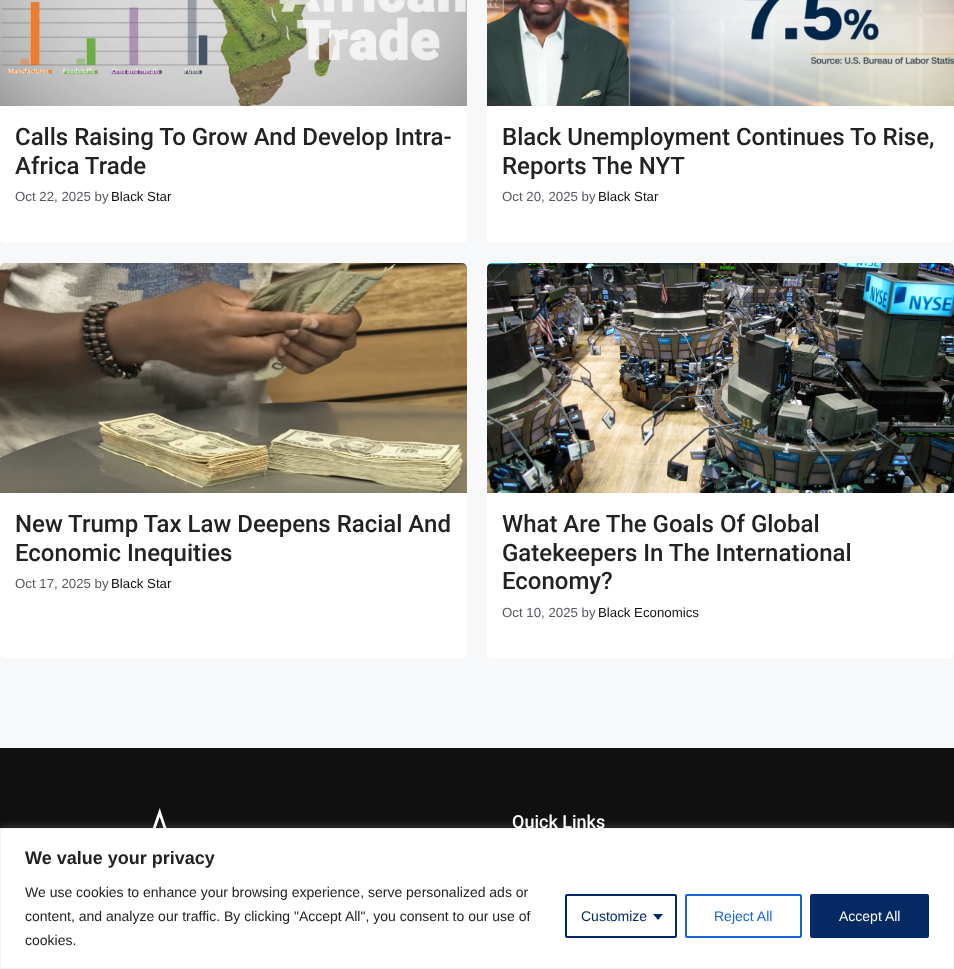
<svg xmlns="http://www.w3.org/2000/svg" xmlns:xlink="http://www.w3.org/1999/xlink" width="954" height="969" viewBox="0 0 954 969">
<style>
.cls-1{font:500 24px Roboto;fill:#222222}
.cls-2{font:13.25px Liberation Sans;fill:#575760}
.cls-3{font:13.25px Liberation Sans;fill:#0e0e0e}
.cls-4{font:500 18px Roboto;fill:#ffffff}
.cls-5{font:bold 18px Liberation Sans;fill:#222222}
.cls-6{font:14px Liberation Sans;fill:#222222}
.cls-7{font:14px Liberation Sans;fill:#052962}
.cls-8{font:14px Liberation Sans;fill:#1863dc}
.cls-9{font:14px Liberation Sans;fill:#ffffff}
</style>
<rect width="100%" height="100%" fill="#f7f8f9"/>
<rect fill="#ffffff" x="0" y="-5" width="467" height="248" rx="5"/>
<image xlink:href="image0.png" x="0" y="0" width="467" height="106"/>
<rect fill="#ffffff" x="487" y="-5" width="467" height="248" rx="5"/>
<image xlink:href="image1.png" x="487" y="0" width="467" height="106"/>
<rect fill="#ffffff" x="0" y="263" width="467" height="395" rx="5"/>
<image xlink:href="image2.png" x="0" y="263" width="467" height="230"/>
<rect fill="#ffffff" x="487" y="263" width="467" height="395" rx="5"/>
<image xlink:href="image3.png" x="487" y="263" width="467" height="230"/>
<rect fill="#101010" x="0" y="748" width="954" height="80"/>
<image xlink:href="image4.png" x="152" y="808" width="15" height="20"/>
<rect fill="#acabab" fill-opacity="0.3" filter="blur(5px)" x="0" y="827" width="954" height="141"/>
<rect fill="#ffffff" stroke="#f4f4f4" x="0.5" y="828.5" width="953" height="140"/>
<rect fill="none" stroke="#052962" stroke-width="2" x="566" y="895" width="110" height="42" rx="1"/>
<path fill="#052962" d="M653 914H663L658 920Z"/>
<rect fill="none" stroke="#1863dc" stroke-width="2" x="686" y="895" width="115" height="42" rx="1"/>
<rect fill="#052962" stroke="#052962" stroke-width="2" x="811" y="895" width="117" height="42" rx="1"/>
<text class="cls-1"><tspan x="15" y="145">Calls Raising To Grow And Develop Intra-</tspan><tspan x="15" y="174">Africa Trade</tspan></text>
<text class="cls-2" x="15" y="201">Oct 22, 2025 by</text>
<text class="cls-3" x="111" y="201">Black Star</text>
<text class="cls-1"><tspan x="502" y="145">Black Unemployment Continues To Rise,</tspan><tspan x="502" y="174">Reports The NYT</tspan></text>
<text class="cls-2" x="502" y="201">Oct 20, 2025 by</text>
<text class="cls-3" x="598" y="201">Black Star</text>
<text class="cls-1"><tspan x="15" y="532">New Trump Tax Law Deepens Racial And</tspan><tspan x="15" y="561">Economic Inequities</tspan></text>
<text class="cls-2" x="15" y="588">Oct 17, 2025 by</text>
<text class="cls-3" x="111" y="588">Black Star</text>
<text class="cls-1"><tspan x="502" y="532">What Are The Goals Of Global</tspan><tspan x="502" y="561">Gatekeepers In The International</tspan><tspan x="502" y="589">Economy?</tspan></text>
<text class="cls-2" x="502" y="617">Oct 10, 2025 by</text>
<text class="cls-3" x="598" y="617">Black Economics</text>
<text class="cls-4" x="512" y="828">Quick Links</text>
<text class="cls-5" x="25" y="864">We value your privacy</text>
<text class="cls-6"><tspan x="25" y="897">We use cookies to enhance your browsing experience, serve personalized ads or</tspan><tspan x="25" y="921">content, and analyze our traffic. By clicking "Accept All", you consent to our use of</tspan><tspan x="25" y="945">cookies.</tspan></text>
<text class="cls-7" x="581" y="921">Customize</text>
<text class="cls-8" x="714" y="921">Reject All</text>
<text class="cls-9" x="839" y="921">Accept All</text>
</svg>
